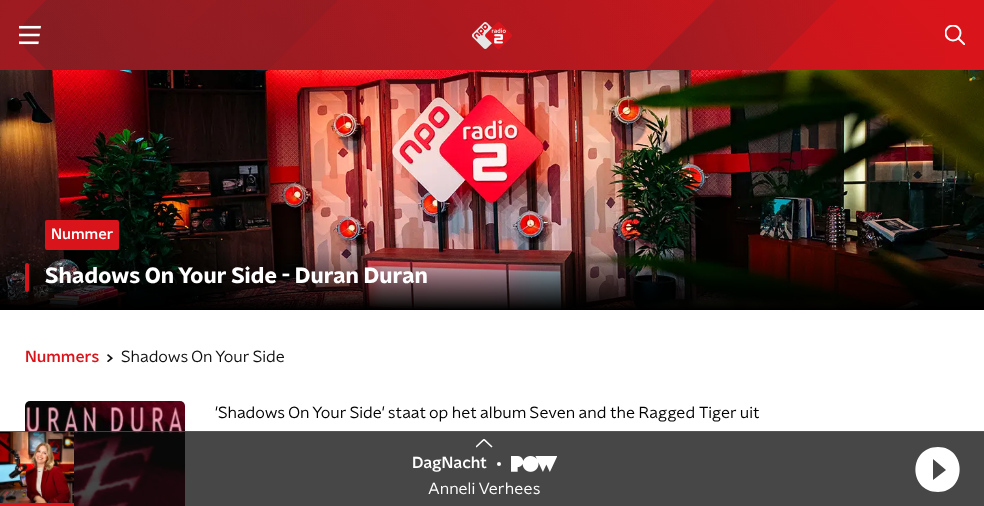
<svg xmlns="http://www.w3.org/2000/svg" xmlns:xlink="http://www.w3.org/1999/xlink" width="984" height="506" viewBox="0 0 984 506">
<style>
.cls-1{font:500 15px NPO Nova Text;fill:#ffffff}
.cls-2{font:bold 22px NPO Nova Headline;fill:#ffffff}
.cls-3{font:500 16px NPO Nova Text;fill:#d9151b}
.cls-4{font:16px NPO Nova Text;fill:#101010}
.cls-5{font:16px NPO Nova Text;fill:#000000}
.cls-6{font:500 16px NPO Nova Text;fill:#ffffff}
.cls-7{font:16px NPO Nova Text;fill:#ffffff}
</style>
<defs>
<linearGradient id="g1" gradientUnits="userSpaceOnUse" x1="910" y1="230" x2="74" y2="-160"><stop offset="0.11" stop-color="#d9151b"/><stop offset="1" stop-color="#9c1b21"/></linearGradient>
<clipPath id="clip1"><rect x="945" y="25" width="20" height="20"/></clipPath>
<clipPath id="clip2"><rect x="476" y="439" width="18" height="9"/></clipPath>
</defs>
<rect width="100%" height="100%" fill="#ffffff"/>
<rect fill="url(#g1)" x="0" y="0" width="984" height="70"/>
<image xlink:href="image0.png" x="21" y="0" width="924" height="70"/>
<image xlink:href="image1.png" x="19" y="25" width="22" height="20"/>
<image xlink:href="image2.png" x="472" y="22" width="40" height="27"/>
<g clip-path="url(#clip1)">
<circle fill="none" stroke="#ffffff" stroke-width="2" cx="953" cy="33" r="7.5"/>
<path fill="none" stroke="#ffffff" stroke-width="2" stroke-linecap="square" d="M958.5 38.5L964.5 44.5"/>
</g>
<image xlink:href="image3.png" x="0" y="70" width="984" height="240"/>
<rect fill="#d9151b" x="45" y="220" width="74" height="30" rx="2"/>
<rect fill="#d9151b" x="25" y="263" width="4" height="29" rx="2"/>
<image xlink:href="image4.png" x="107" y="354" width="6" height="8"/>
<image xlink:href="image5.png" x="25" y="401" width="160" height="105"/>
<rect fill="#090909" fill-opacity="0.75" x="0" y="431" width="984" height="75"/>
<rect fill="#5f5f5f" fill-opacity="0.65" x="0" y="431" width="984" height="1"/>
<image xlink:href="image6.png" x="0" y="432" width="74" height="71"/>
<rect fill="#d9151b" x="0" y="503" width="74" height="3"/>
<g clip-path="url(#clip2)">
<path fill="none" stroke="#ffffff" stroke-width="1.6" d="M492 447L484 439.5L476 447"/>
</g>
<circle fill="#ffffff" cx="499" cy="464" r="2"/>
<image xlink:href="image7.png" x="511" y="456" width="46" height="16"/>
<path fill="#ffffff" d="M938 447C908 447 908 492 938 492C967 492 967 447 938 447ZM933 480V459L946 470Z"/>
<text class="cls-1" x="51" y="239">Nummer</text>
<text class="cls-2" x="45" y="283">Shadows On Your Side - Duran Duran</text>
<text class="cls-3" x="25" y="362">Nummers</text>
<text class="cls-4" x="121" y="362">Shadows On Your Side</text>
<text class="cls-5" x="215" y="418">'Shadows On Your Side' staat op het album Seven and the Ragged Tiger uit</text>
<text class="cls-6" x="412" y="468">DagNacht</text>
<text class="cls-7" x="428" y="494">Anneli Verhees</text>
</svg>
